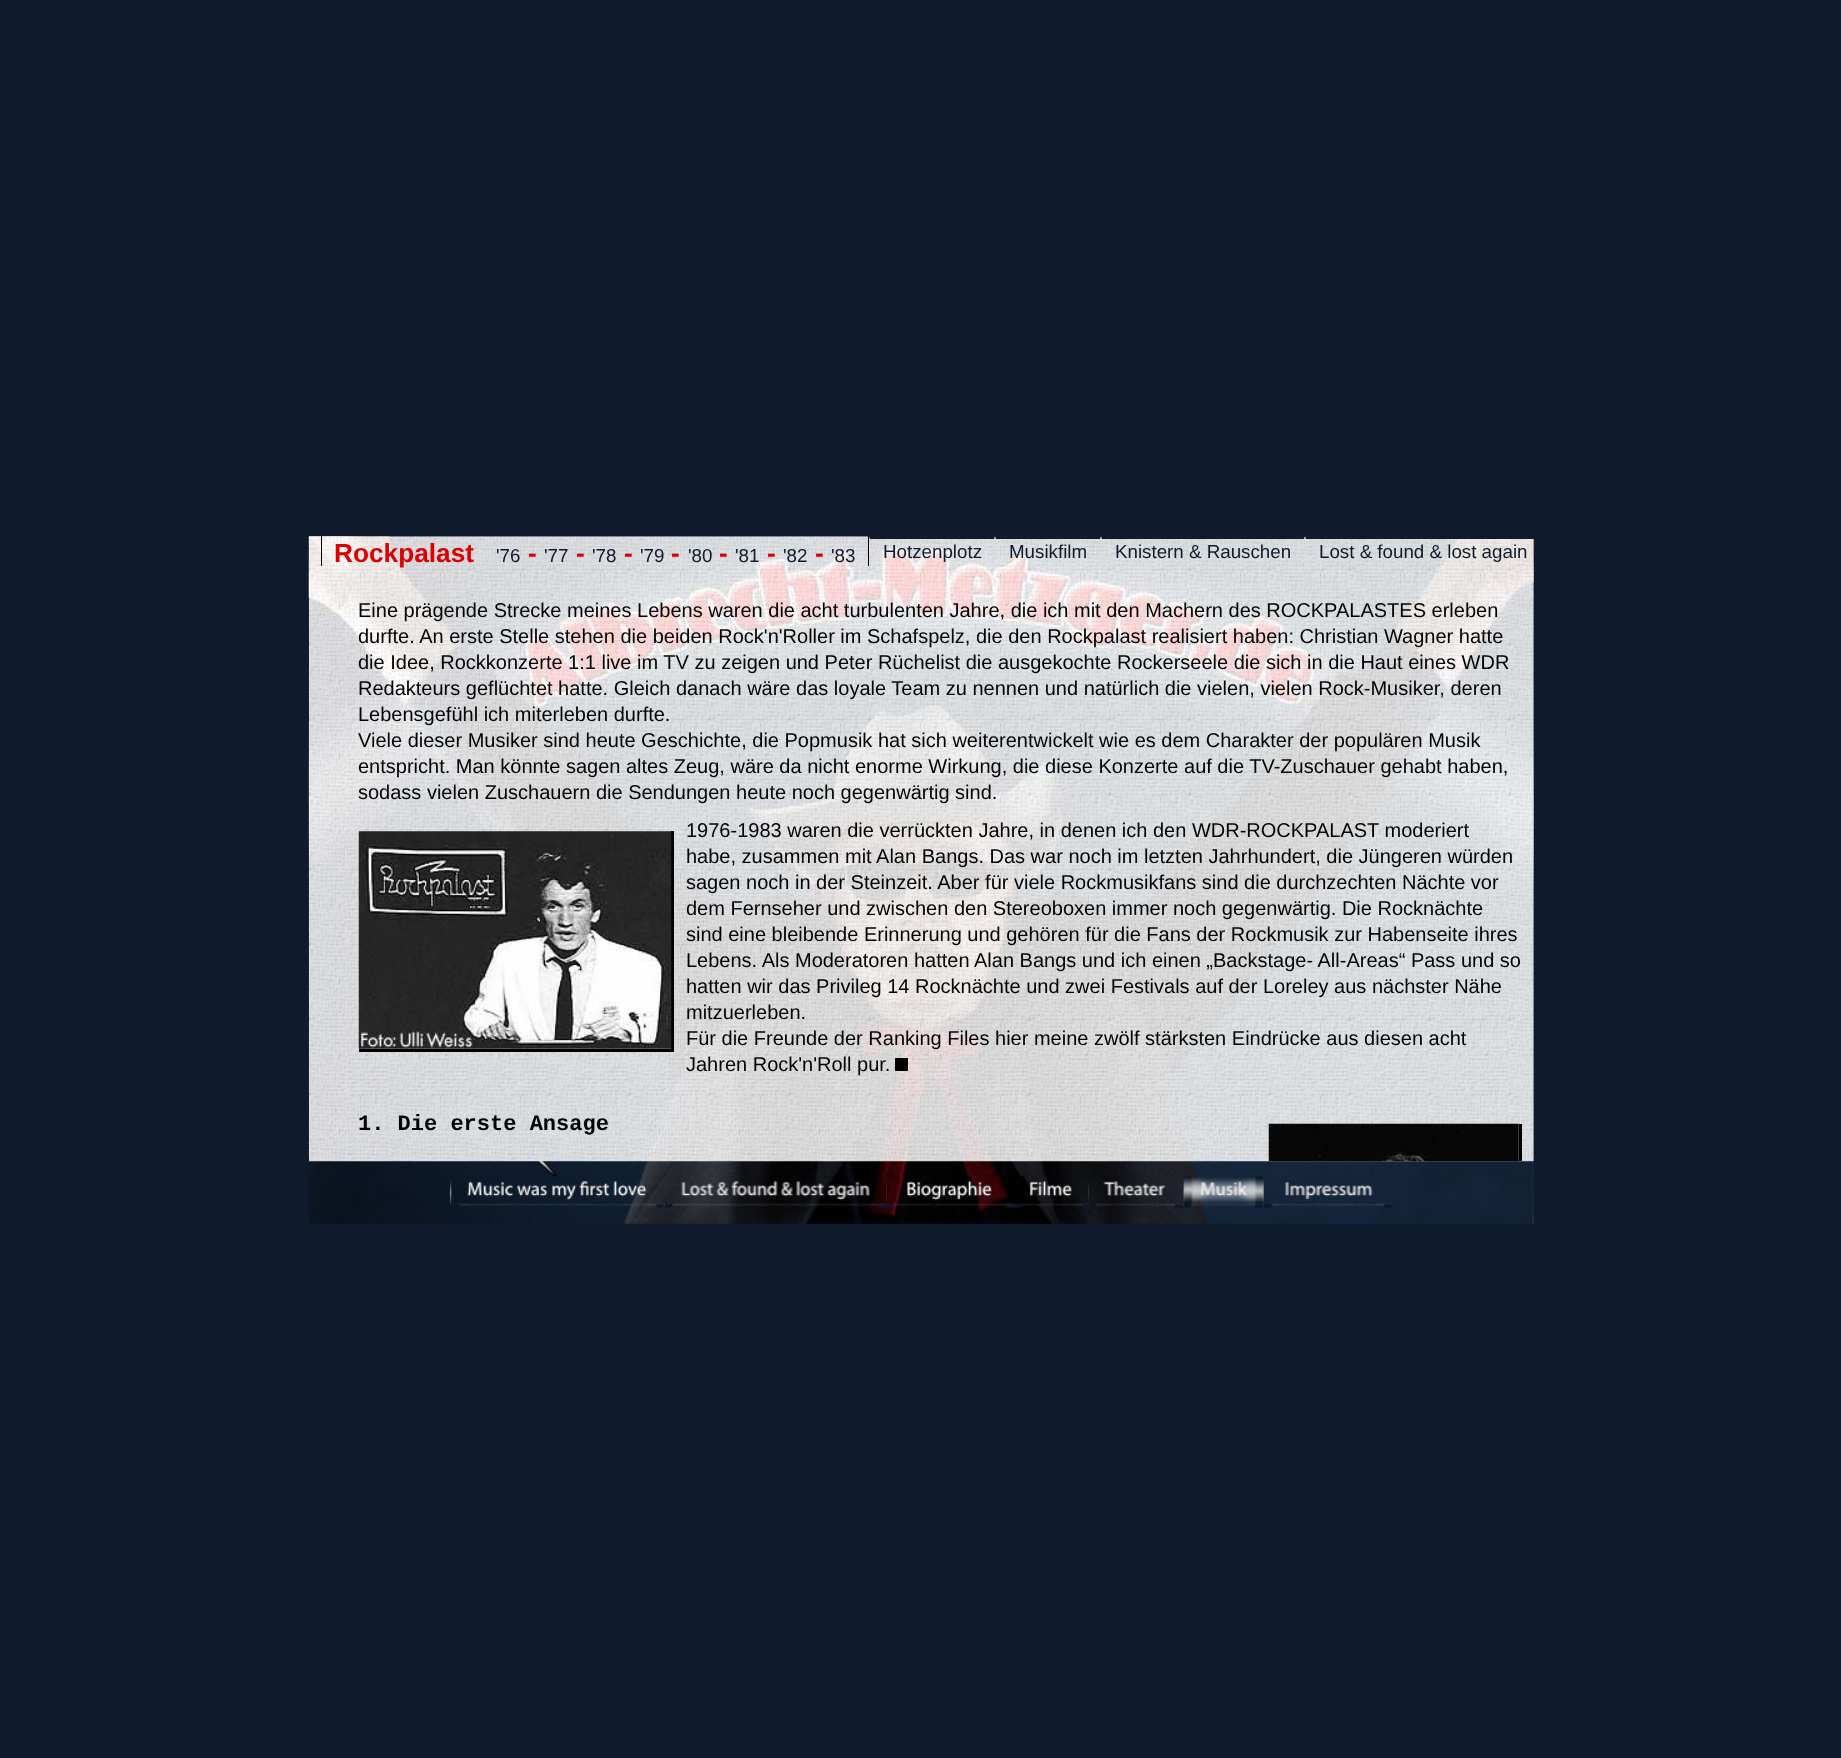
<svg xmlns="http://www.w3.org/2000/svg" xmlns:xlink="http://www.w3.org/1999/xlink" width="1841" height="1758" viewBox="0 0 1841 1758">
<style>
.cls-1{font:bold 26.25px Liberation Sans;fill:#dd0000}
.cls-2{font:18.75px Liberation Sans;fill:#0f1a2c}
.cls-3{font:20px Liberation Sans;fill:#000000}
.cls-4{font:bold 22px Liberation Mono;fill:#000000}
</style>
<defs>
<clipPath id="clip1"><rect x="309" y="536" width="1225" height="688"/></clipPath>
</defs>
<rect width="100%" height="100%" fill="#0f1a2c"/>
<image xlink:href="image0.png" x="308" y="536" width="1226" height="688"/>
<image xlink:href="image1.png" x="308" y="536" width="1226" height="626"/>
<rect fill="#000000" x="868" y="536" width="1" height="30"/>
<rect fill="#000000" x="321" y="536" width="1" height="30"/>
<path fill="#0f1a2c" d="M869 536H995L994 539H870Z"/>
<path fill="#0f1a2c" d="M995 536H1101L1100 539H996Z"/>
<path fill="#0f1a2c" d="M1101 536H1305L1304 539H1102Z"/>
<g clip-path="url(#clip1)">
<path fill="#0f1a2c" d="M1305 536H1541L1540 539H1306Z"/>
</g>
<rect fill="#000000" x="671" y="831" width="3" height="220"/>
<rect fill="#000000" x="359" y="1049" width="315" height="3"/>
<image xlink:href="image2.png" x="358" y="831" width="314" height="218"/>
<rect fill="#010101" x="895" y="1058" width="13" height="13"/>
<rect fill="#000000" x="1519" y="1124" width="3" height="37"/>
<image xlink:href="image3.png" x="1268" y="1123" width="251" height="39"/>
<image xlink:href="image4.png" x="451" y="1176" width="214" height="28"/>
<image xlink:href="image5.png" x="665" y="1176" width="222" height="28"/>
<image xlink:href="image6.png" x="886" y="1176" width="129" height="28"/>
<image xlink:href="image7.png" x="1015" y="1176" width="74" height="28"/>
<image xlink:href="image8.png" x="1088" y="1176" width="96" height="28"/>
<image xlink:href="image9.png" x="1183" y="1176" width="81" height="28"/>
<image xlink:href="image10.png" x="1263" y="1176" width="130" height="28"/>
<text class="cls-1" x="334" y="562">Rockpalast</text>
<text class="cls-2" x="496" y="562">'76</text>
<text class="cls-1" x="528" y="562">-</text>
<text class="cls-2" x="544" y="562">'77</text>
<text class="cls-1" x="576" y="562">-</text>
<text class="cls-2" x="592" y="562">'78</text>
<text class="cls-1" x="624" y="562">-</text>
<text class="cls-2" x="640" y="562">'79</text>
<text class="cls-1" x="671" y="562">-</text>
<text class="cls-2" x="688" y="562">'80</text>
<text class="cls-1" x="719" y="562">-</text>
<text class="cls-2" x="735" y="562">'81</text>
<text class="cls-1" x="767" y="562">-</text>
<text class="cls-2" x="783" y="562">'82</text>
<text class="cls-1" x="815" y="562">-</text>
<text class="cls-2" x="831" y="562">'83</text>
<text class="cls-2" x="883" y="558">Hotzenplotz</text>
<text class="cls-2" x="1009" y="558">Musikfilm</text>
<text class="cls-2" x="1115" y="558">Knistern &amp; Rauschen</text>
<text class="cls-2" x="1319" y="558">Lost &amp; found &amp; lost again</text>
<text class="cls-3"><tspan x="358" y="617">Eine prägende Strecke meines Lebens waren die acht turbulenten Jahre, die ich mit den Machern des ROCKPALASTES erleben</tspan><tspan x="358" y="643">durfte. An erste Stelle stehen die beiden Rock'n'Roller im Schafspelz, die den Rockpalast realisiert haben: Christian Wagner hatte</tspan><tspan x="358" y="669">die Idee, Rockkonzerte 1:1 live im TV zu zeigen und Peter Rüchelist die ausgekochte Rockerseele die sich in die Haut eines WDR</tspan><tspan x="358" y="695">Redakteurs geflüchtet hatte. Gleich danach wäre das loyale Team zu nennen und natürlich die vielen, vielen Rock-Musiker, deren</tspan><tspan x="358" y="721">Lebensgefühl ich miterleben durfte.</tspan><tspan x="358" y="747">Viele dieser Musiker sind heute Geschichte, die Popmusik hat sich weiterentwickelt wie es dem Charakter der populären Musik</tspan><tspan x="358" y="773">entspricht. Man könnte sagen altes Zeug, wäre da nicht enorme Wirkung, die diese Konzerte auf die TV-Zuschauer gehabt haben,</tspan><tspan x="358" y="799">sodass vielen Zuschauern die Sendungen heute noch gegenwärtig sind.</tspan></text>
<text class="cls-3"><tspan x="686" y="837">1976-1983 waren die verrückten Jahre, in denen ich den WDR-ROCKPALAST moderiert</tspan><tspan x="686" y="863">habe, zusammen mit Alan Bangs. Das war noch im letzten Jahrhundert, die Jüngeren würden</tspan><tspan x="686" y="889">sagen noch in der Steinzeit. Aber für viele Rockmusikfans sind die durchzechten Nächte vor</tspan><tspan x="686" y="915">dem Fernseher und zwischen den Stereoboxen immer noch gegenwärtig. Die Rocknächte</tspan><tspan x="686" y="941">sind eine bleibende Erinnerung und gehören für die Fans der Rockmusik zur Habenseite ihres</tspan><tspan x="686" y="967">Lebens. Als Moderatoren hatten Alan Bangs und ich einen „Backstage- All-Areas“ Pass und so</tspan><tspan x="686" y="993">hatten wir das Privileg 14 Rocknächte und zwei Festivals auf der Loreley aus nächster Nähe</tspan><tspan x="686" y="1019">mitzuerleben.</tspan><tspan x="686" y="1045">Für die Freunde der Ranking Files hier meine zwölf stärksten Eindrücke aus diesen acht</tspan><tspan x="686" y="1071">Jahren Rock'n'Roll pur.</tspan></text>
<text class="cls-4" x="358" y="1130">1. Die erste Ansage</text>
</svg>
